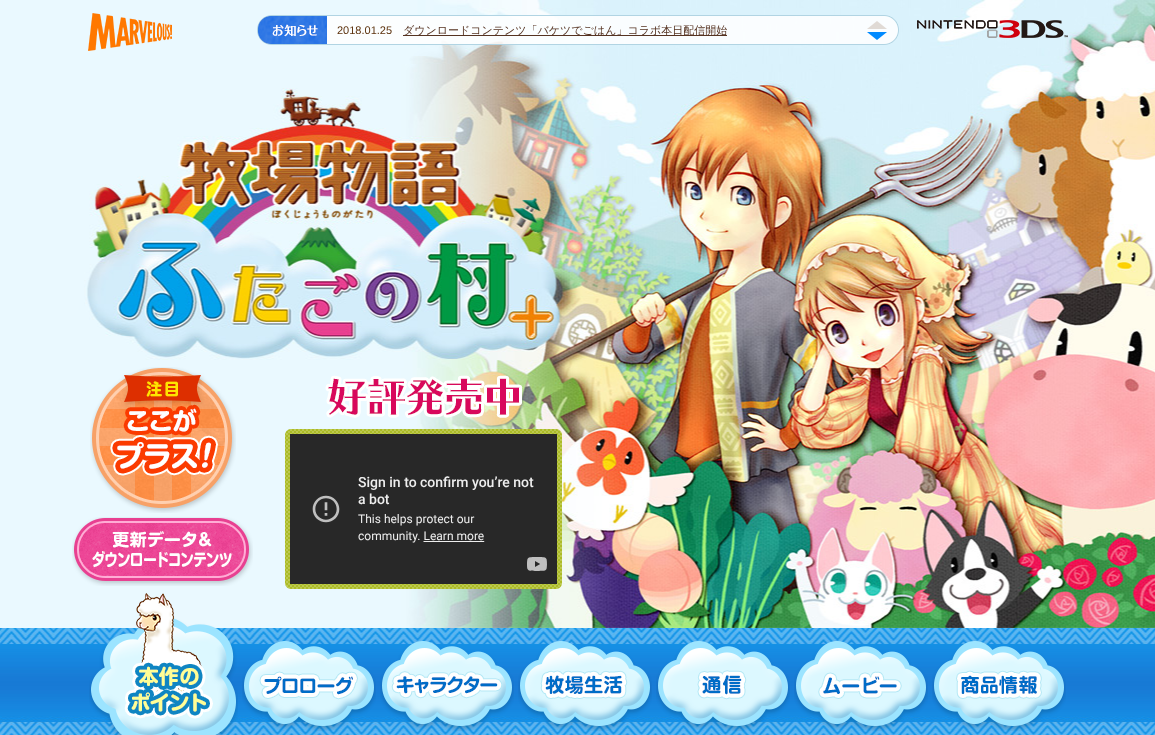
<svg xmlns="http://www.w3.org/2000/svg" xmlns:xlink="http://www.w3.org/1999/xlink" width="1155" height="735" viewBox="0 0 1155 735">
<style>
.cls-1{font:11px Liberation Sans;fill:#5d330f}
.cls-2{font:500 11px WenQuanYi Zen Hei;fill:#553322}
</style>
<rect width="100%" height="100%" fill="#eaf9ff"/>
<image xlink:href="image0.png" x="84" y="0" width="1071" height="628"/>
<image xlink:href="image1.png" x="88" y="13" width="84" height="38"/>
<image xlink:href="image2.png" x="257" y="15" width="642" height="30"/>
<rect fill="#553322" x="403" y="35" width="324" height="1"/>
<image xlink:href="image3.png" x="867" y="21" width="20" height="8"/>
<image xlink:href="image4.png" x="867" y="32" width="20" height="8"/>
<image xlink:href="image5.png" x="917" y="20" width="151" height="18"/>
<image xlink:href="image6.png" x="90" y="367" width="146" height="146"/>
<image xlink:href="image7.png" x="72" y="517" width="181" height="69"/>
<image xlink:href="image8.png" x="325" y="375" width="198" height="43"/>
<image xlink:href="image9.png" x="285" y="429" width="277" height="160"/>
<image xlink:href="image10.png" x="290" y="434" width="267" height="150"/>
<image xlink:href="image11.png" x="0" y="628" width="1155" height="107"/>
<image xlink:href="image12.png" x="89" y="593" width="149" height="142"/>
<image xlink:href="image13.png" x="242" y="641" width="134" height="90"/>
<image xlink:href="image14.png" x="380" y="641" width="134" height="90"/>
<image xlink:href="image15.png" x="518" y="641" width="134" height="90"/>
<image xlink:href="image16.png" x="656" y="641" width="134" height="90"/>
<image xlink:href="image17.png" x="794" y="641" width="134" height="90"/>
<image xlink:href="image18.png" x="932" y="641" width="134" height="90"/>
<text class="cls-1" x="337" y="34">2018.01.25</text>
<text class="cls-2" x="403" y="34">ダウンロードコンテンツ「バケツでごはん」コラボ本日配信開始</text>
</svg>
